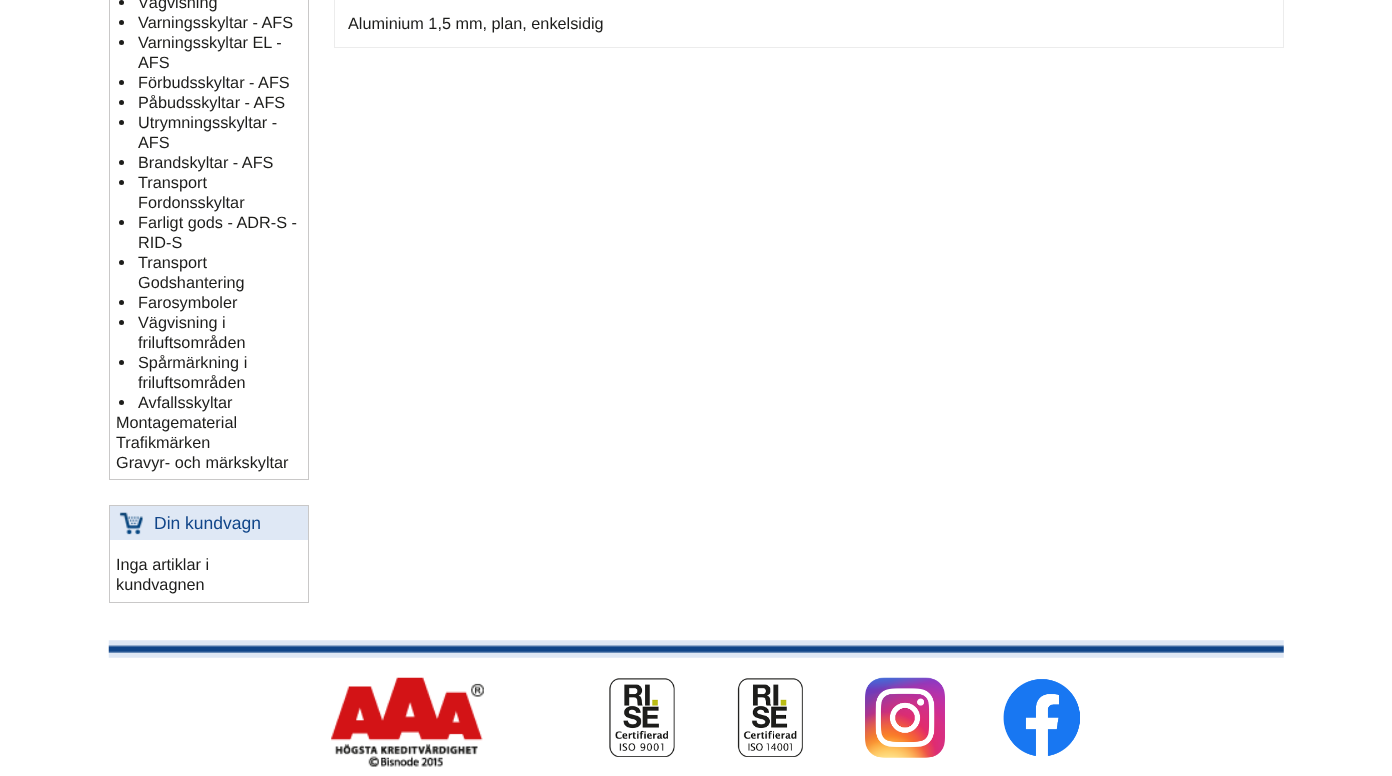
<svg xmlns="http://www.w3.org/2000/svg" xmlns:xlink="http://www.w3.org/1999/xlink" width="1392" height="776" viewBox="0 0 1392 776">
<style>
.cls-1{font:16.25px Liberation Sans;fill:#1d1d1b}
.cls-2{font:17.5px Liberation Sans;fill:#104589}
</style>
<rect width="100%" height="100%" fill="#ffffff"/>
<rect fill="none" stroke="#c9c8c8" x="109.5" y="-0.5" width="199" height="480"/>
<circle fill="#1d1d1b" cx="121.5" cy="2.5" r="2.5"/>
<circle fill="#1d1d1b" cx="121.5" cy="22.5" r="2.5"/>
<circle fill="#1d1d1b" cx="121.5" cy="42.5" r="2.5"/>
<circle fill="#1d1d1b" cx="121.5" cy="82.5" r="2.5"/>
<circle fill="#1d1d1b" cx="121.5" cy="102.5" r="2.5"/>
<circle fill="#1d1d1b" cx="121.5" cy="122.5" r="2.5"/>
<circle fill="#1d1d1b" cx="121.5" cy="162.5" r="2.5"/>
<circle fill="#1d1d1b" cx="121.5" cy="182.5" r="2.5"/>
<circle fill="#1d1d1b" cx="121.5" cy="222.5" r="2.5"/>
<circle fill="#1d1d1b" cx="121.5" cy="262.5" r="2.5"/>
<circle fill="#1d1d1b" cx="121.5" cy="302.5" r="2.5"/>
<circle fill="#1d1d1b" cx="121.5" cy="322.5" r="2.5"/>
<circle fill="#1d1d1b" cx="121.5" cy="362.5" r="2.5"/>
<circle fill="#1d1d1b" cx="121.5" cy="402.5" r="2.5"/>
<rect fill="none" stroke="#c9c8c8" x="109.5" y="505.5" width="199" height="97"/>
<rect fill="#dfe8f5" x="110" y="506" width="198" height="34"/>
<image xlink:href="image0.png" x="119" y="512" width="24" height="23"/>
<rect fill="none" stroke="#ececec" x="334.5" y="-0.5" width="949" height="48"/>
<image xlink:href="image1.png" x="108" y="640" width="1176" height="18"/>
<image xlink:href="image2.png" x="331" y="677" width="153" height="90"/>
<image xlink:href="image3.png" x="609" y="678" width="66" height="79"/>
<image xlink:href="image4.png" x="737" y="678" width="66" height="79"/>
<image xlink:href="image5.png" x="865" y="677" width="80" height="81"/>
<image xlink:href="image6.png" x="1003" y="679" width="77" height="77"/>
<text class="cls-1"><tspan x="138" y="8">Vägvisning</tspan><tspan x="138" y="28">Varningsskyltar - AFS</tspan><tspan x="138" y="48">Varningsskyltar EL -</tspan><tspan x="138" y="68">AFS</tspan><tspan x="138" y="88">Förbudsskyltar - AFS</tspan><tspan x="138" y="108">Påbudsskyltar - AFS</tspan><tspan x="138" y="128">Utrymningsskyltar -</tspan><tspan x="138" y="148">AFS</tspan><tspan x="138" y="168">Brandskyltar - AFS</tspan><tspan x="138" y="188">Transport</tspan><tspan x="138" y="208">Fordonsskyltar</tspan><tspan x="138" y="228">Farligt gods - ADR-S -</tspan><tspan x="138" y="248">RID-S</tspan><tspan x="138" y="268">Transport</tspan><tspan x="138" y="288">Godshantering</tspan><tspan x="138" y="308">Farosymboler</tspan><tspan x="138" y="328">Vägvisning i</tspan><tspan x="138" y="348">friluftsområden</tspan><tspan x="138" y="368">Spårmärkning i</tspan><tspan x="138" y="388">friluftsområden</tspan><tspan x="138" y="408">Avfallsskyltar</tspan></text>
<text class="cls-1"><tspan x="116" y="428">Montagematerial</tspan><tspan x="116" y="448">Trafikmärken</tspan><tspan x="116" y="468">Gravyr- och märkskyltar</tspan></text>
<text class="cls-2" x="154" y="529">Din kundvagn</text>
<text class="cls-1"><tspan x="116" y="570">Inga artiklar i</tspan><tspan x="116" y="590">kundvagnen</tspan></text>
<text class="cls-1" x="348" y="29">Aluminium 1,5 mm, plan, enkelsidig</text>
</svg>
